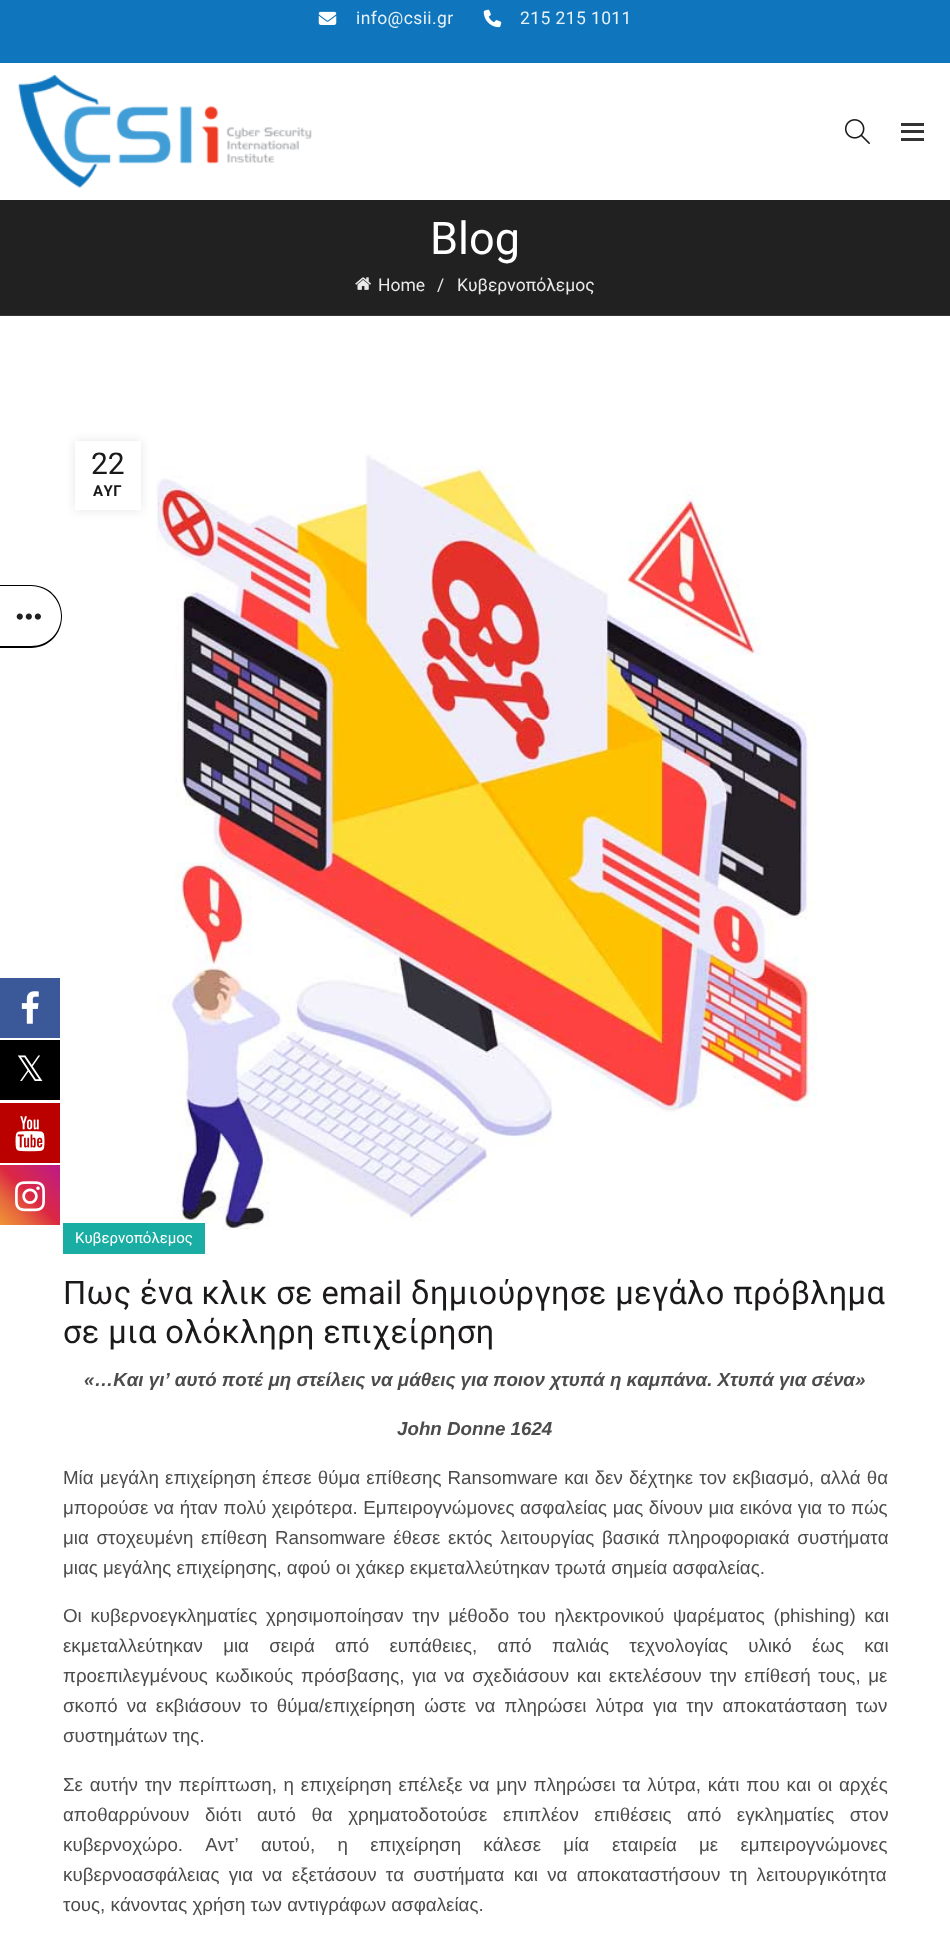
<svg xmlns="http://www.w3.org/2000/svg" xmlns:xlink="http://www.w3.org/1999/xlink" width="950" height="1948" viewBox="0 0 950 1948">
<style>*{font-kerning:none!important;font-variant-ligatures:none!important}</style>
<style>
.cls-1{font:17.5px Roboto;letter-spacing:0.4px;fill:#e7f1f8}
.cls-2{font:45px Roboto;fill:#ffffff}
.cls-3{font:17.5px Roboto;fill:#e9e9e9}
.cls-4{font:30px Roboto;fill:#1b1919}
.cls-5{font:bold 15px Roboto;letter-spacing:0.5px;fill:#1b1919}
.cls-6{font:15px Roboto;fill:#ffffff}
.cls-7{font:32.5px Roboto;letter-spacing:0.4px;fill:#1b1919}
.cls-8{font:italic bold 18.75px Liberation Sans;fill:#4c4c4c}
.cls-9{font:18.75px Liberation Sans;fill:#4c4c4c}
.cls-10{font:35px DejaVu Sans;fill:#ffffff}
</style>
<defs>
<linearGradient id="g1" gradientUnits="userSpaceOnUse" x1="0" y1="1225" x2="60" y2="1165"><stop offset="0" stop-color="#f09433"/><stop offset="0.25" stop-color="#e6683c"/><stop offset="0.5" stop-color="#dc2743"/><stop offset="0.75" stop-color="#cc2366"/><stop offset="1" stop-color="#bc1888"/></linearGradient>
</defs>
<rect width="100%" height="100%" fill="#ffffff"/>
<path fill="#000000" fill-rule="evenodd" d="M0 585H31C49 585 62 599 62 616C62 634 49 648 31 648H0ZM0 586H31C48 586 61 600 61 616C61 633 48 646 31 646H0Z"/>
<image xlink:href="image0.png" x="16" y="613" width="25" height="7"/>
<rect fill="#0f75bc" x="0" y="0" width="950" height="63"/>
<image xlink:href="image1.png" x="318" y="11" width="19" height="14"/>
<image xlink:href="image2.png" x="483" y="9" width="19" height="19"/>
<image xlink:href="image3.png" x="18" y="75" width="294" height="113"/>
<image xlink:href="image4.png" x="844" y="119" width="26" height="25"/>
<rect fill="#333333" x="901" y="130" width="23" height="3"/>
<rect fill="#333333" x="901" y="123" width="23" height="3"/>
<rect fill="#333333" x="901" y="138" width="23" height="3"/>
<rect fill="#212121" x="0" y="200" width="950" height="115"/>
<rect fill="#353535" x="0" y="315" width="950" height="1"/>
<image xlink:href="image5.png" x="355" y="277" width="16" height="13"/>
<image xlink:href="image6.png" x="156" y="454" width="661" height="776"/>
<rect fill="#000000" fill-opacity="0.1" filter="blur(5.5px)" x="75" y="441" width="66" height="69"/>
<rect fill="#ffffff" x="75" y="441" width="66" height="69"/>
<rect fill="#1aada3" x="63" y="1223" width="142" height="31"/>
<rect fill="#3b5998" x="0" y="978" width="60" height="60"/>
<image xlink:href="image7.png" x="21" y="991" width="18" height="33"/>
<rect fill="#000000" x="0" y="1040" width="60" height="60"/>
<rect fill="#bb0000" x="0" y="1103" width="60" height="60"/>
<image xlink:href="image8.png" x="15" y="1116" width="30" height="36"/>
<rect fill="url(#g1)" x="0" y="1165" width="60" height="60"/>
<image xlink:href="image9.png" x="15" y="1181" width="30" height="31"/>
<text class="cls-1" x="356" y="24">info@csii.gr</text>
<text class="cls-1" x="520" y="24">215 215 1011</text>
<text class="cls-2" x="430" y="254">Blog</text>
<text class="cls-3" x="378" y="291">Home</text>
<text class="cls-3" x="437" y="291">/</text>
<text class="cls-3" x="457" y="291">Κυβερνοπόλεμος</text>
<text class="cls-4" x="91" y="474">22</text>
<text class="cls-5" x="93" y="496">ΑΥΓ</text>
<text class="cls-6" x="75" y="1243">Κυβερνοπόλεμος</text>
<text class="cls-7"><tspan x="63" y="1304">Πως ένα κλικ σε email δημιούργησε μεγάλο πρόβλημα</tspan><tspan x="63" y="1343">σε μια ολόκληρη επιχείρηση</tspan></text>
<text class="cls-8" x="84" y="1386">«…Και γι’ αυτό ποτέ μη στείλεις να μάθεις για ποιον χτυπά η καμπάνα. Χτυπά για σένα»</text>
<text class="cls-8" x="397" y="1435">John Donne 1624</text>
<text class="cls-9"><tspan x="63" y="1484" word-spacing="0.9">Μία μεγάλη επιχείρηση έπεσε θύμα επίθεσης Ransomware και δεν δέχτηκε τον εκβιασμό, αλλά θα</tspan><tspan x="63" y="1514" word-spacing="0.3">μπορούσε να ήταν πολύ χειρότερα. Εμπειρογνώμονες ασφαλείας μας δίνουν μια εικόνα για το πώς</tspan><tspan x="63" y="1544" word-spacing="2.5">μια στοχευμένη επίθεση Ransomware έθεσε εκτός λειτουργίας βασικά πληροφοριακά συστήματα</tspan><tspan x="63" y="1574">μιας μεγάλης επιχείρησης, αφού οι χάκερ εκμεταλλεύτηκαν τρωτά σημεία ασφαλείας.</tspan></text>
<text class="cls-9"><tspan x="63" y="1622" word-spacing="3.5">Οι κυβερνοεγκληματίες χρησιμοποίησαν την μέθοδο του ηλεκτρονικού ψαρέματος (phishing) και</tspan><tspan x="63" y="1652" word-spacing="15">εκμεταλλεύτηκαν μια σειρά από ευπάθειες, από παλιάς τεχνολογίας υλικό έως και</tspan><tspan x="63" y="1682" word-spacing="2.5">προεπιλεγμένους κωδικούς πρόσβασης, για να σχεδιάσουν και εκτελέσουν την επίθεσή τους, με</tspan><tspan x="63" y="1712" word-spacing="3.75">σκοπό να εκβιάσουν το θύμα/επιχείρηση ώστε να πληρώσει λύτρα για την αποκατάσταση των</tspan><tspan x="63" y="1742">συστημάτων της.</tspan></text>
<text class="cls-9"><tspan x="63" y="1791" word-spacing="1.5">Σε αυτήν την περίπτωση, η επιχείρηση επέλεξε να μην πληρώσει τα λύτρα, κάτι που και οι αρχές</tspan><tspan x="63" y="1821" word-spacing="10.25">αποθαρρύνουν διότι αυτό θα χρηματοδοτούσε επιπλέον επιθέσεις από εγκληματίες στον</tspan><tspan x="63" y="1851" word-spacing="17">κυβερνοχώρο. Αντ’ αυτού, η επιχείρηση κάλεσε μία</tspan></text>
<text class="cls-9" x="612" y="1851" word-spacing="17">εταιρεία με εμπειρογνώμονες</text>
<text class="cls-9"><tspan x="63" y="1881" word-spacing="4">κυβερνοασφάλειας για να εξετάσουν τα συστήματα και να αποκαταστήσουν τη λειτουργικότητα</tspan><tspan x="63" y="1911">τους, κάνοντας χρήση των αντιγράφων ασφαλείας.</tspan></text>
<text class="cls-10" x="16" y="1081">𝕏</text>
</svg>
